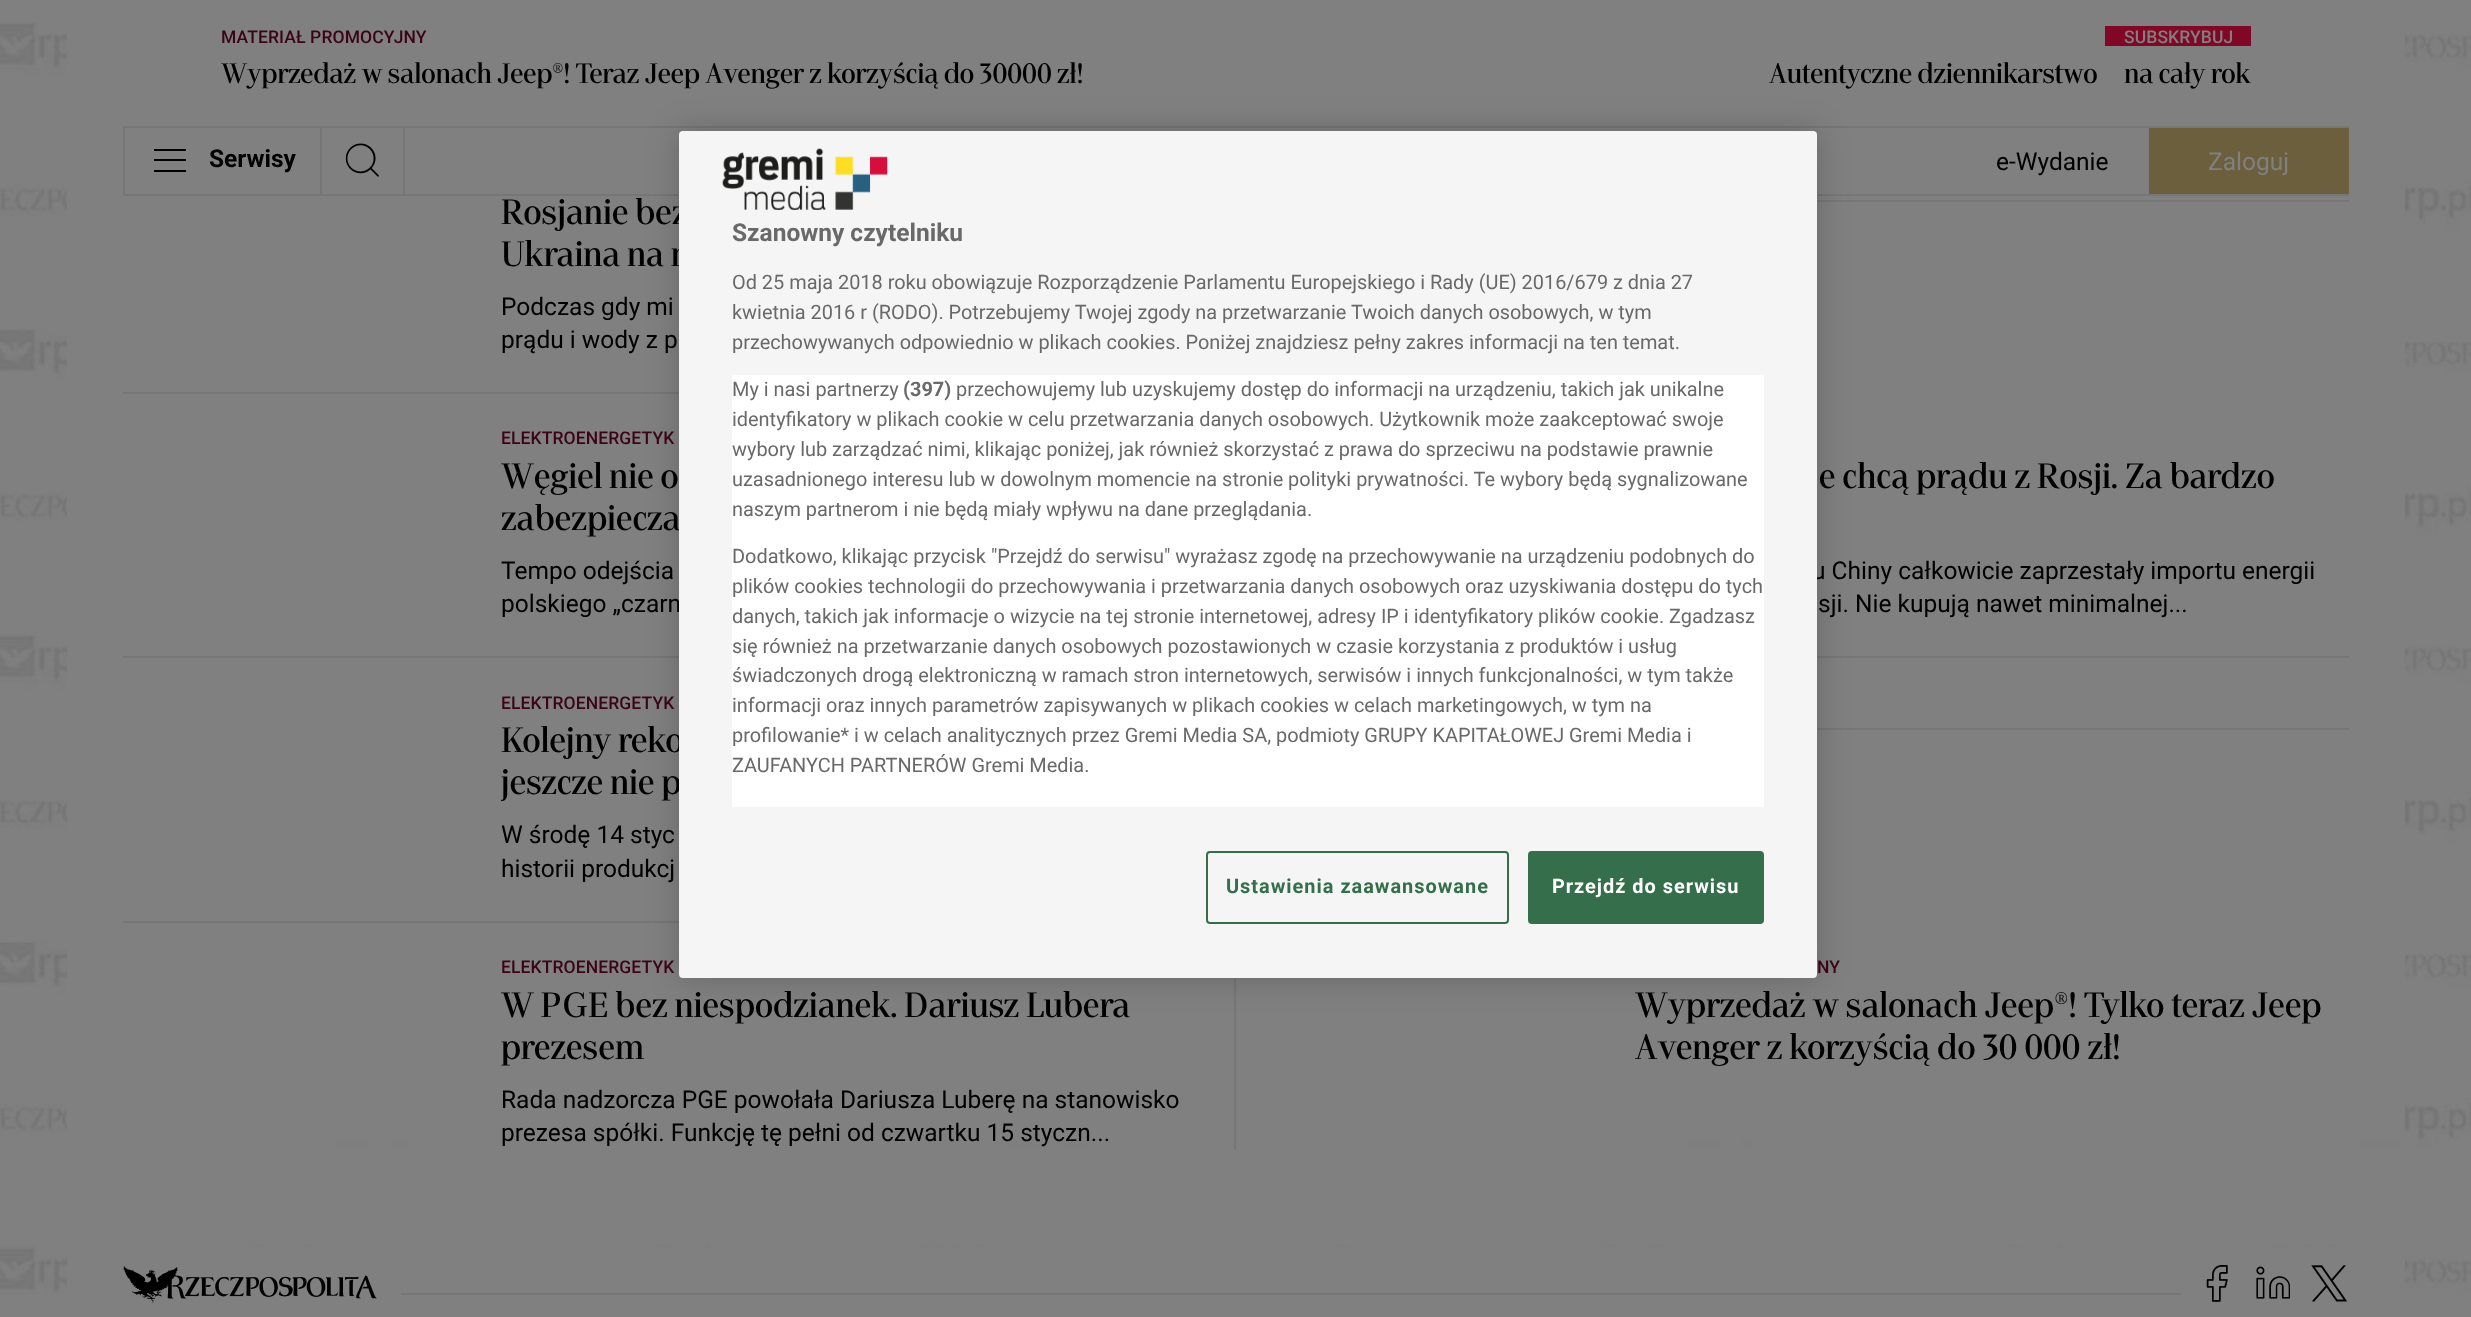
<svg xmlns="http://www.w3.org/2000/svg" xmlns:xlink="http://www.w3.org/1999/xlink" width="2471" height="1317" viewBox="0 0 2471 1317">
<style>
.cls-1{font:500 17.5px Roboto;letter-spacing:0.1px;fill:#3b0317}
.cls-2{font:600 28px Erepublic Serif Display;fill:#000000}
.cls-3{font:500 17.5px Roboto;letter-spacing:0.1px;fill:#808080}
.cls-4{font:bold 24.5px Roboto;fill:#000000}
.cls-5{font:24.5px Roboto;fill:#000000}
.cls-6{font:24.5px Roboto;fill:#808080}
.cls-7{font:600 35px Erepublic Serif Display;letter-spacing:0.2px;fill:#000000}
.cls-8{font:bold 24.5px Roboto;fill:#696969}
.cls-9{font:19.92px Roboto;fill:#696969}
.cls-10{font:bold 19.92px Roboto;fill:#696969}
.cls-11{font:bold 19.92px Roboto;letter-spacing:1px;fill:#346e4a}
.cls-12{font:bold 19.92px Roboto;letter-spacing:1px;fill:#ffffff}
</style>
<defs>
<clipPath id="clip1"><rect x="501" y="721" width="712" height="84"/></clipPath>
</defs>
<rect width="100%" height="100%" fill="#808080"/>
<image xlink:href="image0.png" x="0" y="22" width="2471" height="1272"/>
<rect fill="#808080" x="67" y="22" width="2338" height="1118"/>
<rect fill="#800725" x="2105" y="26" width="146" height="20"/>
<rect fill="#767676" x="123" y="126" width="2226" height="2"/>
<rect fill="#767676" x="123" y="194" width="2226" height="2"/>
<rect fill="#767676" x="320" y="128" width="2" height="66"/>
<rect fill="#767676" x="123" y="128" width="2" height="66"/>
<rect fill="#000000" x="154" y="149" width="32" height="2"/>
<rect fill="#000000" x="154" y="159" width="32" height="2"/>
<rect fill="#000000" x="154" y="170" width="32" height="2"/>
<rect fill="#767676" x="403" y="128" width="2" height="66"/>
<image xlink:href="image1.png" x="345" y="143" width="34" height="34"/>
<rect fill="#6c5f3e" x="2149" y="128" width="200" height="66"/>
<rect fill="#767676" x="123" y="392" width="556" height="2"/>
<rect fill="#767676" x="1817" y="200" width="532" height="2"/>
<rect fill="#767676" x="123" y="656" width="556" height="2"/>
<rect fill="#767676" x="1817" y="656" width="532" height="2"/>
<rect fill="#767676" x="123" y="921" width="556" height="2"/>
<rect fill="#767676" x="1817" y="728" width="532" height="2"/>
<rect fill="#767676" x="1234" y="978" width="2" height="172"/>
<rect fill="#808080" x="67" y="1247" width="2338" height="47"/>
<image xlink:href="image2.png" x="123" y="1266" width="254" height="37"/>
<rect fill="#767676" x="401" y="1293" width="1780" height="2"/>
<image xlink:href="image3.png" x="2206" y="1265" width="22" height="37"/>
<image xlink:href="image4.png" x="2256" y="1266" width="34" height="33"/>
<image xlink:href="image5.png" x="2311" y="1265" width="37" height="37"/>
<rect fill="#000000" fill-opacity="0.2" filter="blur(16px)" x="679" y="131" width="1138" height="847" rx="4"/>
<text class="cls-1" x="221" y="43">MATERIAŁ PROMOCYJNY</text>
<text class="cls-2" x="221" y="83">Wyprzedaż w salonach Jeep®! Teraz Jeep Avenger z korzyścią do 30000 zł!</text>
<text class="cls-3" x="2124" y="43">SUBSKRYBUJ</text>
<text class="cls-2" xml:space="preserve" x="1769" y="83">Autentyczne dziennikarstwo     na cały rok</text>
<text class="cls-4" x="209" y="167">Serwisy</text>
<text class="cls-5" x="1996" y="170">e-Wydanie</text>
<text class="cls-6" x="2208" y="170">Zaloguj</text>
<text class="cls-7"><tspan x="501" y="224">Rosjanie bez</tspan><tspan x="501" y="266">Ukraina na n</tspan></text>
<text class="cls-5"><tspan x="501" y="315">Podczas gdy mi</tspan><tspan x="501" y="348">prądu i wody z p</tspan></text>
<text class="cls-1" x="501" y="444">ELEKTROENERGETYK</text>
<text class="cls-7"><tspan x="501" y="488">Węgiel nie o</tspan><tspan x="501" y="530">zabezpiecza</tspan></text>
<text class="cls-5"><tspan x="501" y="579">Tempo odejścia</tspan><tspan x="501" y="612">polskiego „czarn</tspan></text>
<text class="cls-7" x="1819" y="488">e chcą prądu z Rosji. Za bardzo</text>
<text class="cls-5" x="1812" y="579">u Chiny całkowicie zaprzestały importu energii</text>
<text class="cls-5" x="1818" y="612">sji. Nie kupują nawet minimalnej...</text>
<text class="cls-1" x="501" y="709">ELEKTROENERGETYK</text>
<text class="cls-7" x="501" y="752">Kolejny reko</text>
<g clip-path="url(#clip1)">
<text class="cls-7" x="501" y="794">jeszcze nie p</text>
</g>
<text class="cls-5"><tspan x="501" y="843">W środę 14 styc</tspan><tspan x="501" y="877">historii produkcj</tspan></text>
<text class="cls-1" x="501" y="973">ELEKTROENERGETYK</text>
<text class="cls-7"><tspan x="501" y="1017">W PGE bez niespodzianek. Dariusz Lubera</tspan><tspan x="501" y="1059">prezesem</tspan></text>
<text class="cls-5"><tspan x="501" y="1108">Rada nadzorcza PGE powołała Dariusza Luberę na stanowisko</tspan><tspan x="501" y="1141">prezesa spółki. Funkcję tę pełni od czwartku 15 styczn...</tspan></text>
<text class="cls-1" x="1817" y="973">NY</text>
<text class="cls-7"><tspan x="1635" y="1017">Wyprzedaż w salonach Jeep®! Tylko teraz Jeep</tspan><tspan x="1635" y="1059">Avenger z korzyścią do 30 000 zł!</tspan></text>
<rect fill="#f5f5f5" x="679" y="131" width="1138" height="847" rx="4"/>
<image xlink:href="image6.png" x="722" y="148" width="166" height="62"/>
<text class="cls-8" x="732" y="241">Szanowny czytelniku</text>
<text class="cls-9"><tspan x="732" y="289">Od 25 maja 2018 roku obowiązuje Rozporządzenie Parlamentu Europejskiego i Rady (UE) 2016/679 z dnia 27</tspan><tspan x="732" y="319">kwietnia 2016 r (RODO). Potrzebujemy Twojej zgody na przetwarzanie Twoich danych osobowych, w tym</tspan><tspan x="732" y="349">przechowywanych odpowiednio w plikach cookies. Poniżej znajdziesz pełny zakres informacji na ten temat.</tspan></text>
<rect fill="#ffffff" x="732" y="375" width="1032" height="432"/>
<text class="cls-9" x="732" y="396">My i nasi partnerzy</text>
<text class="cls-10" x="903" y="396">(397)</text>
<text class="cls-9" x="956" y="396">przechowujemy lub uzyskujemy dostęp do informacji na urządzeniu, takich jak unikalne</text>
<text class="cls-9"><tspan x="732" y="426">identyfikatory w plikach cookie w celu przetwarzania danych osobowych. Użytkownik może zaakceptować swoje</tspan><tspan x="732" y="456">wybory lub zarządzać nimi, klikając poniżej, jak również skorzystać z prawa do sprzeciwu na podstawie prawnie</tspan><tspan x="732" y="486">uzasadnionego interesu lub w dowolnym momencie na stronie polityki prywatności. Te wybory będą sygnalizowane</tspan><tspan x="732" y="516">naszym partnerom i nie będą miały wpływu na dane przeglądania.</tspan></text>
<text class="cls-9"><tspan x="732" y="563">Dodatkowo, klikając przycisk "Przejdź do serwisu" wyrażasz zgodę na przechowywanie na urządzeniu podobnych do</tspan><tspan x="732" y="593">plików cookies technologii do przechowywania i przetwarzania danych osobowych oraz uzyskiwania dostępu do tych</tspan><tspan x="732" y="623">danych, takich jak informacje o wizycie na tej stronie internetowej, adresy IP i identyfikatory plików cookie. Zgadzasz</tspan><tspan x="732" y="653">się również na przetwarzanie danych osobowych pozostawionych w czasie korzystania z produktów i usług</tspan><tspan x="732" y="682">świadczonych drogą elektroniczną w ramach stron internetowych, serwisów i innych funkcjonalności, w tym także</tspan><tspan x="732" y="712">informacji oraz innych parametrów zapisywanych w plikach cookies w celach marketingowych, w tym na</tspan><tspan x="732" y="742">profilowanie* i w celach analitycznych przez Gremi Media SA, podmioty GRUPY KAPITAŁOWEJ Gremi Media i</tspan><tspan x="732" y="772">ZAUFANYCH PARTNERÓW Gremi Media.</tspan></text>
<rect fill="none" stroke="#346e4a" stroke-width="2" x="1207" y="852" width="301" height="71" rx="3"/>
<text class="cls-11" x="1226" y="893">Ustawienia zaawansowane</text>
<rect fill="#346e4a" stroke="#346e4a" stroke-width="2" x="1529" y="852" width="234" height="71" rx="3"/>
<text class="cls-12" x="1552" y="893">Przejdź do serwisu</text>
</svg>
